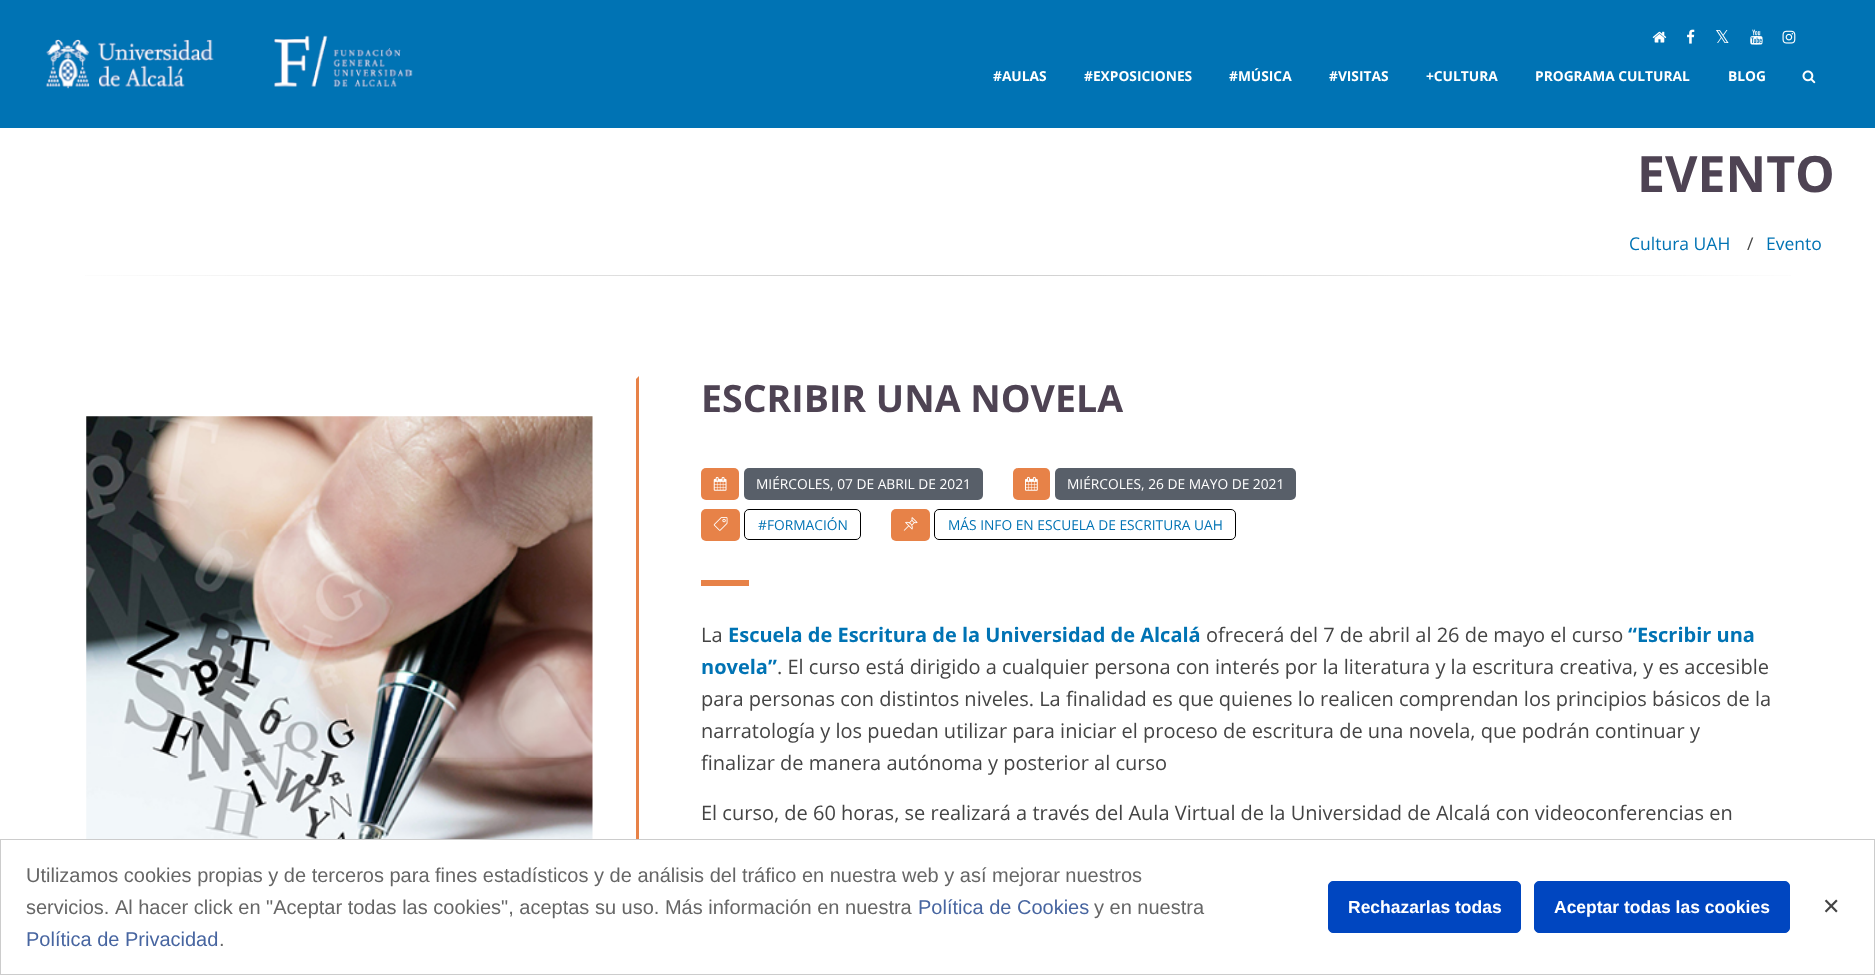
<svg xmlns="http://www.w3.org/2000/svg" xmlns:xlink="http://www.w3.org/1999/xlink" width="1875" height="975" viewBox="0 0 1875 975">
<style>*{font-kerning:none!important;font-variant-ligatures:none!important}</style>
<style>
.cls-1{font:18px DejaVu Sans;fill:#ffffff}
.cls-2{font:bold 13.75px Open Sans;fill:#ffffff}
.cls-3{font:bold 50px Open Sans;fill:#4e4353}
.cls-4{font:17.5px Open Sans;fill:#0073b4}
.cls-5{font:17.5px Open Sans;fill:#444444}
.cls-6{font:bold 37.5px Open Sans;fill:#4e4353}
.cls-7{font:13.75px Open Sans;fill:#ffffff}
.cls-8{font:13.75px Open Sans;fill:#0073b4}
.cls-9{font:20px Open Sans;fill:#444444}
.cls-10{font:bold 20px Open Sans;fill:#0073b4}
.cls-11{font:20px Liberation Sans;fill:#666666}
.cls-12{font:20px Liberation Sans;fill:#4765a0}
.cls-13{font:bold 17.5px Liberation Sans;fill:#ffffff}
.cls-14{font:22px DejaVu Sans;fill:#444444}
</style>
<defs>
<linearGradient id="g1" gradientUnits="userSpaceOnUse" x1="41" y1="276" x2="1835" y2="276"><stop offset="0" stop-color="#ffffff"/><stop offset="0.5" stop-color="#cccccc"/><stop offset="1" stop-color="#ffffff"/></linearGradient>
</defs>
<rect width="100%" height="100%" fill="#ffffff"/>
<rect fill="#0073b4" x="0" y="0" width="1875" height="128"/>
<image xlink:href="image0.png" x="45" y="35" width="368" height="54"/>
<image xlink:href="image1.png" x="1652" y="31" width="15" height="12"/>
<image xlink:href="image2.png" x="1687" y="29" width="8" height="15"/>
<image xlink:href="image3.png" x="1750" y="29" width="13" height="16"/>
<image xlink:href="image4.png" x="1782" y="30" width="14" height="14"/>
<image xlink:href="image5.png" x="1802" y="70" width="14" height="14"/>
<rect fill="url(#g1)" x="85" y="275" width="1706" height="1"/>
<path fill="#e78248" d="M639 376V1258L636 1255V379Z"/>
<image xlink:href="image6.png" x="86" y="416" width="507" height="423"/>
<rect fill="#e78248" x="701" y="468" width="38" height="32" rx="5"/>
<image xlink:href="image7.png" x="713" y="476" width="14" height="15"/>
<rect fill="#585f69" x="744" y="468" width="239" height="32" rx="5"/>
<rect fill="#e78248" x="1013" y="468" width="37" height="32" rx="5"/>
<image xlink:href="image8.png" x="1025" y="476" width="13" height="15"/>
<rect fill="#585f69" x="1055" y="468" width="241" height="32" rx="5"/>
<rect fill="#e78248" x="701" y="509" width="39" height="32" rx="5"/>
<image xlink:href="image9.png" x="713" y="517" width="15" height="14"/>
<rect fill="none" stroke="#000000" x="744.5" y="509.5" width="116" height="30" rx="4.5"/>
<rect fill="#e78248" x="891" y="509" width="39" height="32" rx="5"/>
<image xlink:href="image10.png" x="903" y="517" width="15" height="14"/>
<rect fill="none" stroke="#000000" x="934.5" y="509.5" width="301" height="30" rx="4.5"/>
<rect fill="#e78248" x="701" y="580" width="48" height="6"/>
<rect fill="#ffffff" x="636" y="840" width="3" height="134"/>
<rect fill="none" stroke="#cccccc" x="0.5" y="839.5" width="1874" height="135"/>
<rect fill="#0046c0" stroke="#0046c0" x="1328.5" y="881.5" width="192" height="51" rx="4.5"/>
<rect fill="#0046c0" stroke="#0046c0" x="1534.5" y="881.5" width="255" height="51" rx="4.5"/>
<text class="cls-1" x="1715" y="43">𝕏</text>
<text class="cls-2" x="993" y="81">#AULAS</text>
<text class="cls-2" x="1084" y="81">#EXPOSICIONES</text>
<text class="cls-2" x="1229" y="81">#MÚSICA</text>
<text class="cls-2" x="1329" y="81">#VISITAS</text>
<text class="cls-2" x="1426" y="81">+CULTURA</text>
<text class="cls-2" x="1535" y="81">PROGRAMA CULTURAL</text>
<text class="cls-2" x="1728" y="81">BLOG</text>
<text class="cls-3" x="1637" y="192">EVENTO</text>
<text class="cls-4" x="1629" y="250">Cultura UAH</text>
<text class="cls-5" x="1747" y="250">/</text>
<text class="cls-4" x="1766" y="250">Evento</text>
<text class="cls-6" x="701" y="412">ESCRIBIR UNA NOVELA</text>
<text class="cls-7" x="756" y="489">MIÉRCOLES, 07 DE ABRIL DE 2021</text>
<text class="cls-7" x="1067" y="489">MIÉRCOLES, 26 DE MAYO DE 2021</text>
<text class="cls-8" x="758" y="530">#FORMACIÓN</text>
<text class="cls-8" x="948" y="530">MÁS INFO EN ESCUELA DE ESCRITURA UAH</text>
<text class="cls-9" x="701" y="642">La</text>
<text class="cls-10" x="728" y="642">Escuela de Escritura de la Universidad de Alcalá</text>
<text class="cls-9" x="1206" y="642">ofrecerá del 7 de abril al 26 de mayo el curso</text>
<text class="cls-10" x="1628" y="642">“Escribir una</text>
<text class="cls-10" x="701" y="674">novela”</text>
<text class="cls-9" x="777" y="674">. El curso está dirigido a cualquier persona con interés por la literatura y la escritura creativa, y es accesible</text>
<text class="cls-9"><tspan x="701" y="706">para personas con distintos niveles. La finalidad es que quienes lo realicen comprendan los principios básicos de la</tspan><tspan x="701" y="738">narratología y los puedan utilizar para iniciar el proceso de escritura de una novela, que podrán continuar y</tspan><tspan x="701" y="770">finalizar de manera autónoma y posterior al curso</tspan></text>
<text class="cls-9" x="701" y="820">El curso, de 60 horas, se realizará a través del Aula Virtual de la Universidad de Alcalá con videoconferencias en</text>
<text class="cls-11"><tspan x="26" y="882">Utilizamos cookies propias y de terceros para fines estadísticos y de análisis del tráfico en nuestra web y así mejorar nuestros</tspan><tspan x="26" y="914">servicios. Al hacer click en "Aceptar todas las cookies", aceptas su uso. Más información en nuestra</tspan></text>
<text class="cls-12" x="918" y="914">Política de Cookies</text>
<text class="cls-11" x="1094" y="914">y en nuestra</text>
<text class="cls-12" x="26" y="946">Política de Privacidad</text>
<text class="cls-11" x="219" y="946">.</text>
<text class="cls-13" x="1348" y="913">Rechazarlas todas</text>
<text class="cls-13" x="1554" y="913">Aceptar todas las cookies</text>
<text class="cls-14" x="1822" y="914">✕</text>
</svg>
